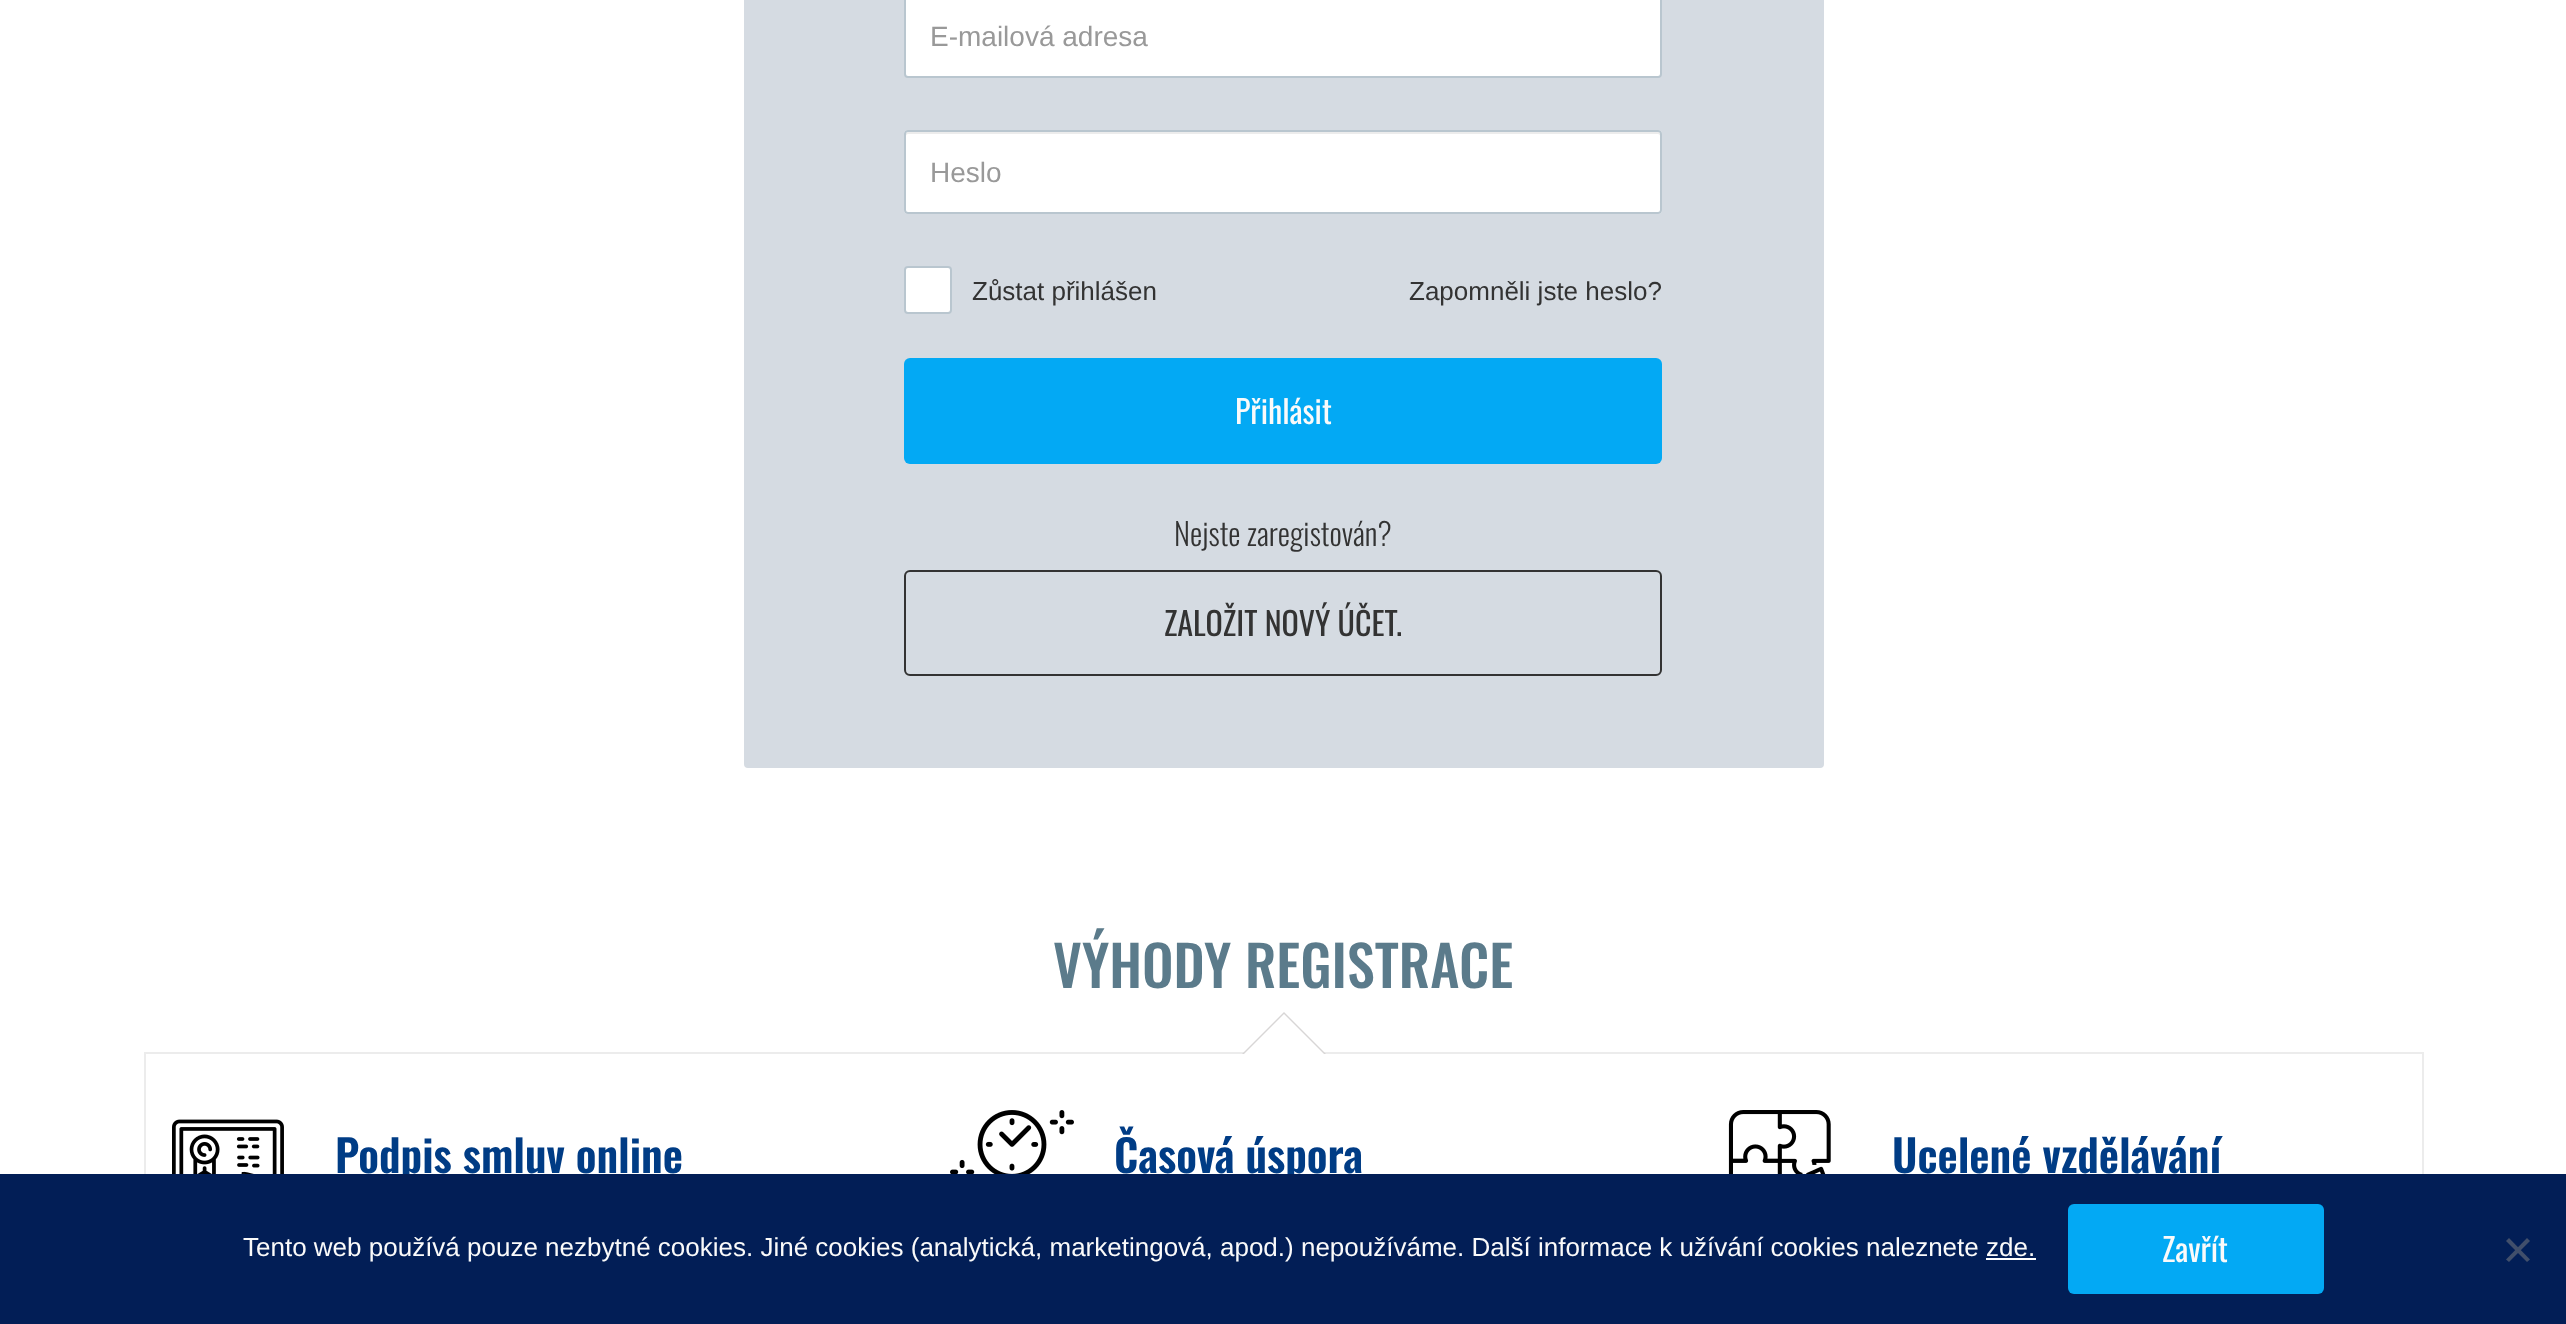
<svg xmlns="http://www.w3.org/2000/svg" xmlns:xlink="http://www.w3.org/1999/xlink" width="2566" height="1324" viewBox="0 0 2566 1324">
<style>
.cls-1{font:28px Liberation Sans;fill:#999999}
.cls-2{font:26px Liberation Sans;fill:#333333}
.cls-3{font:32px Oswald;fill:#fafafa}
.cls-4{font:300 30.75px Oswald;fill:#333333}
.cls-5{font:32px Oswald;fill:#333333}
.cls-6{font:500 56px Oswald;fill:#5b7b8b}
.cls-7{font:600 44px Oswald;fill:#003c85}
.cls-8{font:26px Liberation Sans;fill:#fafafa}
</style>
<rect width="100%" height="100%" fill="#ffffff"/>
<rect fill="#d5dbe2" x="744" y="-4" width="1080" height="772" rx="4"/>
<rect fill="#ffffff" stroke="#b9c6cf" stroke-width="2" x="905" y="-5" width="756" height="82" rx="3"/>
<rect fill="#ffffff" x="904" y="130" width="758" height="84" rx="4"/>
<path fill="#ececec" d="M908 134H1658C1659 134 1660 135 1660 136C1660 134 1660 132 1658 132H908L906 133V136C906 135 907 134 908 134Z"/>
<rect fill="none" stroke="#b9c6cf" stroke-width="2" x="905" y="131" width="756" height="82" rx="3"/>
<rect fill="#ffffff" stroke="#b9c6cf" stroke-width="2" x="905" y="267" width="46" height="46" rx="3"/>
<rect fill="#03a9f4" x="904" y="358" width="758" height="106" rx="6"/>
<rect fill="none" stroke="#333333" stroke-width="2" x="905" y="571" width="756" height="104" rx="5"/>
<rect fill="none" stroke="#ececec" stroke-width="2" x="145" y="1053" width="2278" height="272"/>
<path fill="#d8d6d6" d="M1326 1054H1242L1284 1012Z"/>
<path fill="#ffffff" d="M1324 1054H1244L1284 1014Z"/>
<image xlink:href="image0.png" x="172" y="1119" width="112" height="55"/>
<image xlink:href="image1.png" x="950" y="1110" width="124" height="64"/>
<image xlink:href="image2.png" x="1728" y="1110" width="103" height="64"/>
<text class="cls-1" x="930" y="46">E-mailová adresa</text>
<text class="cls-1" x="930" y="182">Heslo</text>
<text class="cls-2" x="972" y="300">Zůstat přihlášen</text>
<text class="cls-2" x="1409" y="300">Zapomněli jste heslo?</text>
<text class="cls-3" x="1235" y="424">Přihlásit</text>
<text class="cls-4" x="1174" y="546">Nejste zaregistován?</text>
<text class="cls-5" x="1164" y="636">ZALOŽIT NOVÝ ÚČET.</text>
<text class="cls-6" x="1053" y="988">VÝHODY REGISTRACE</text>
<text class="cls-7" x="335" y="1173">Podpis smluv online</text>
<text class="cls-7" x="1114" y="1173">Časová úspora</text>
<text class="cls-7" x="1892" y="1173">Ucelené vzdělávání</text>
<rect fill="#021e56" x="0" y="1174" width="2566" height="150"/>
<text class="cls-8" x="243" y="1256">Tento web používá pouze nezbytné cookies. Jiné cookies (analytická, marketingová, apod.) nepoužíváme. Další informace k užívání cookies naleznete zde.</text>
<rect fill="#ffffff" x="1986" y="1258" width="50" height="2"/>
<rect fill="#03a9f4" x="2068" y="1204" width="256" height="90" rx="6"/>
<text class="cls-3" x="2162" y="1262">Zavřít</text>
<path fill="#414f6b" d="M2527 1238L2530 1241L2509 1262L2506 1259.5Z"/>
<path fill="#414f6b" d="M2506 1241L2509 1238L2530 1259.5L2527 1262Z"/>
</svg>
